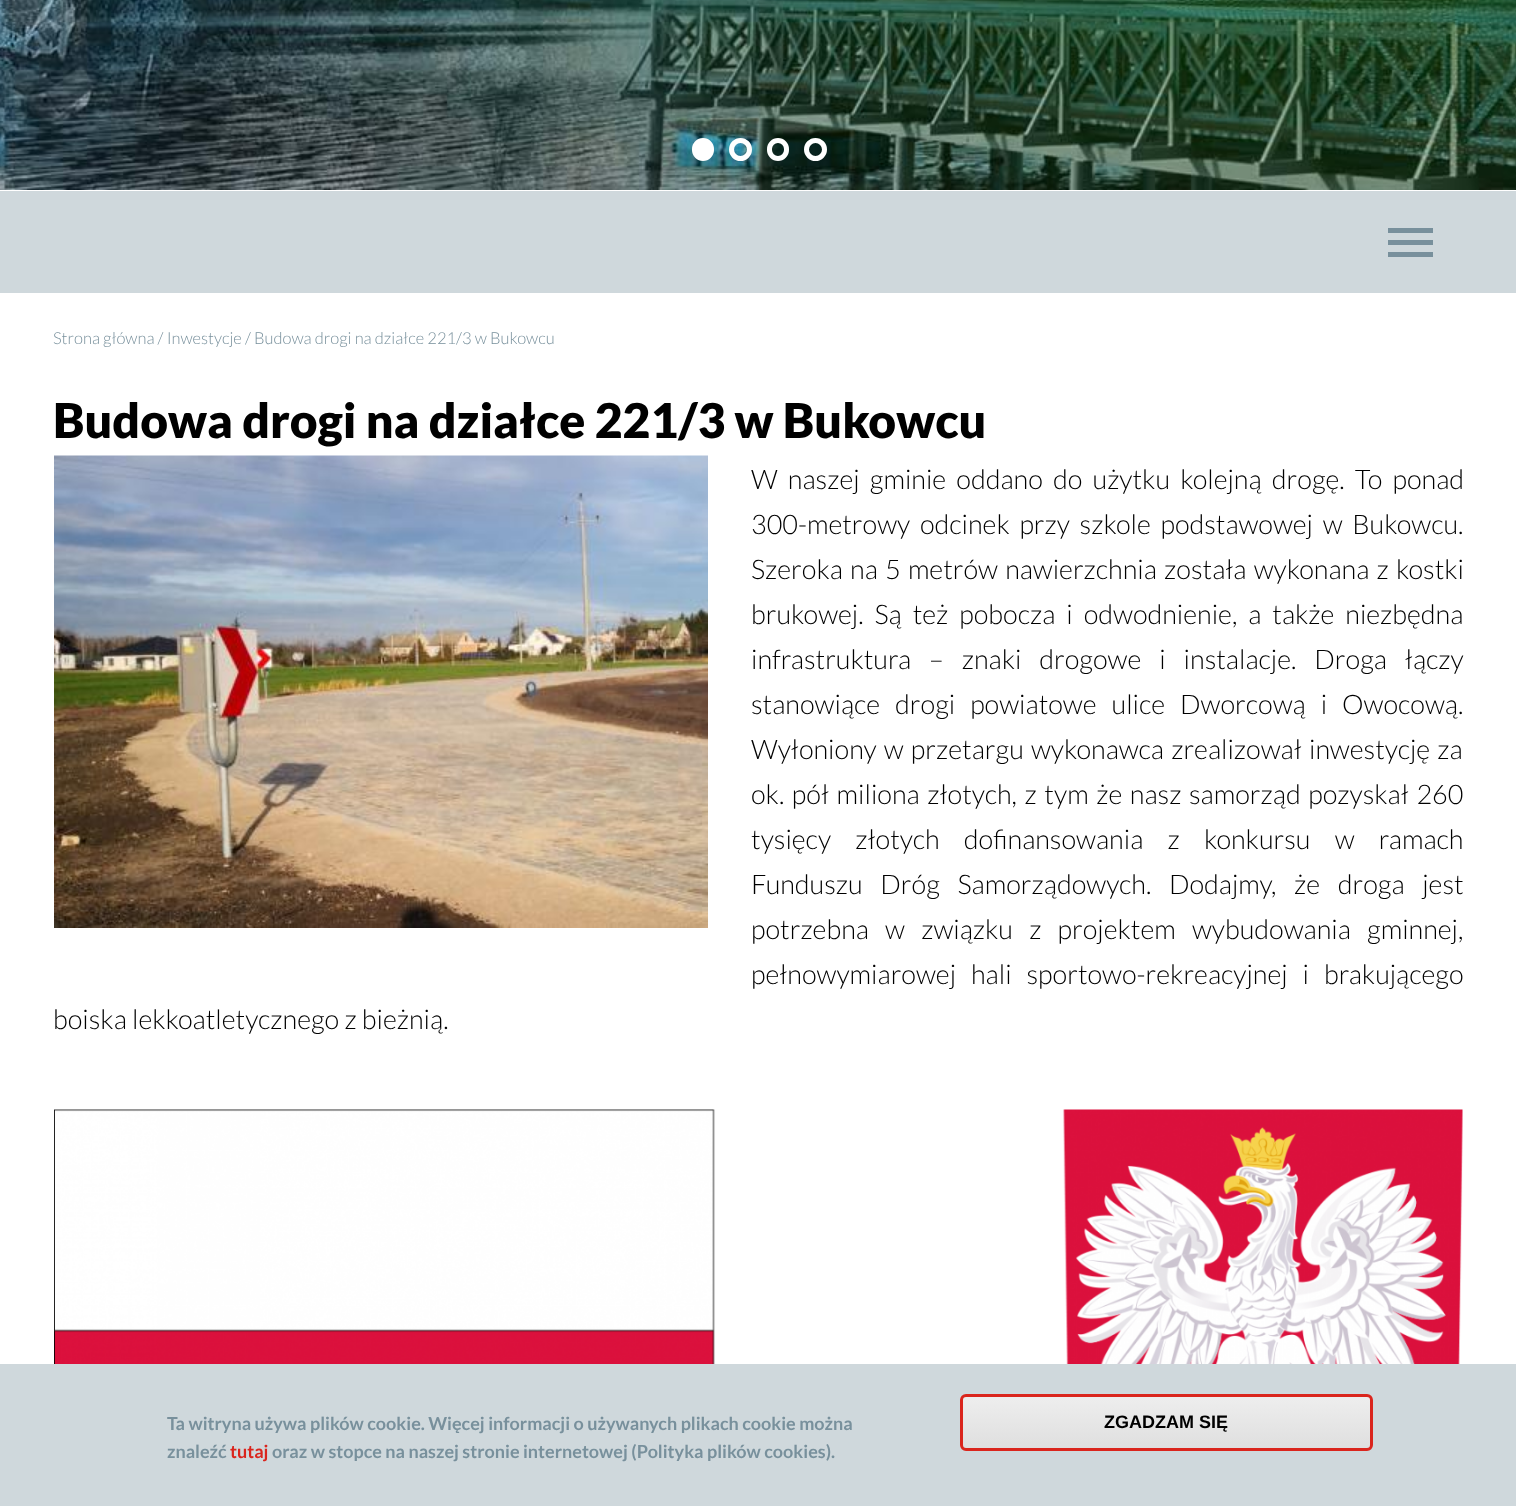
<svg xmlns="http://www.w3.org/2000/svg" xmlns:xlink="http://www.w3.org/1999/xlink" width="1516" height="1506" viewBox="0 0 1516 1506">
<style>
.cls-1{font:300 16.5px Lato;fill:#78909c}
.cls-2{font:900 48px Lato;fill:#000000}
.cls-3{font:300 27px Lato;fill:#000000}
.cls-4{font:bold 18px Lato;fill:#78909c}
.cls-5{font:bold 18px Lato;fill:#da251d}
.cls-6{font:bold 18px Liberation Sans;fill:#000000}
</style>
<defs>
<clipPath id="clip1"><rect x="960" y="1394" width="413" height="57" rx="6"/></clipPath>
<linearGradient id="g1" gradientUnits="userSpaceOnUse" x1="1166" y1="1397" x2="1166" y2="1448"><stop offset="0.05" stop-color="#ededed"/><stop offset="1" stop-color="#dfdfdf"/></linearGradient>
</defs>
<rect width="100%" height="100%" fill="#ffffff"/>
<image xlink:href="image0.png" x="0" y="0" width="1516" height="190"/>
<rect fill="#ffffff" stroke="#ffffff" stroke-width="5" x="694.5" y="140.5" width="17" height="18" rx="8.5"/>
<circle fill="none" stroke="#ffffff" stroke-width="5" cx="740.5" cy="149.5" r="9"/>
<rect fill="none" stroke="#ffffff" stroke-width="5" x="769.5" y="140.5" width="17" height="18" rx="8.5"/>
<circle fill="none" stroke="#ffffff" stroke-width="5" cx="815.5" cy="149.5" r="9"/>
<rect fill="#cfd8dc" x="0" y="191" width="1516" height="102"/>
<rect fill="#78909c" x="1388" y="228" width="45" height="5"/>
<rect fill="#78909c" x="1388" y="240" width="45" height="5"/>
<rect fill="#78909c" x="1388" y="252" width="45" height="5"/>
<image xlink:href="image1.png" x="54" y="455" width="654" height="473"/>
<image xlink:href="image2.png" x="54" y="1109" width="1409" height="255"/>
<rect fill="#cfd8dc" x="0" y="1364" width="1516" height="142"/>
<g clip-path="url(#clip1)">
<rect fill="url(#g1)" x="960" y="1397" width="413" height="51"/>
</g>
<rect fill="none" stroke="#da251d" stroke-width="3" x="961.5" y="1395.5" width="410" height="54" rx="4.5"/>
<text class="cls-1" x="53" y="344">Strona główna / Inwestycje / Budowa drogi na działce 221/3 w Bukowcu</text>
<text class="cls-2" x="53" y="438">Budowa drogi na działce 221/3 w Bukowcu</text>
<text class="cls-3"><tspan x="751" y="489" word-spacing="5">W naszej gminie oddano do użytku kolejną drogę. To ponad</tspan><tspan x="751" y="534" word-spacing="4.5">300-metrowy odcinek przy szkole podstawowej w Bukowcu.</tspan><tspan x="751" y="579" word-spacing="2">Szeroka na 5 metrów nawierzchnia została wykonana z kostki</tspan><tspan x="751" y="624" word-spacing="5.75">brukowej. Są też pobocza i odwodnienie, a także niezbędna</tspan><tspan x="751" y="669" word-spacing="12.75">infrastruktura – znaki drogowe i instalacje. Droga łączy</tspan><tspan x="751" y="714" word-spacing="9.75">stanowiące drogi powiatowe ulice Dworcową i Owocową.</tspan><tspan x="751" y="759" word-spacing="2">Wyłoniony w przetargu wykonawca zrealizował inwestycję za</tspan><tspan x="751" y="804" word-spacing="2.4">ok. pół miliona złotych, z tym że nasz samorząd pozyskał 260</tspan><tspan x="751" y="849" word-spacing="19">tysięcy złotych dofinansowania z konkursu w ramach</tspan><tspan x="751" y="894" word-spacing="12.5">Funduszu Dróg Samorządowych. Dodajmy, że droga jest</tspan><tspan x="751" y="939" word-spacing="11">potrzebna w związku z projektem wybudowania gminnej,</tspan><tspan x="751" y="984" word-spacing="9.75">pełnowymiarowej hali sportowo-rekreacyjnej i brakującego</tspan></text>
<text class="cls-3" x="53" y="1029">boiska lekkoatletycznego z bieżnią.</text>
<text class="cls-4"><tspan x="167" y="1430">Ta witryna używa plików cookie. Więcej informacji o używanych plikach cookie można</tspan><tspan x="167" y="1458">znaleźć</tspan></text>
<text class="cls-5" x="230" y="1458">tutaj</text>
<text class="cls-4" x="272" y="1458">oraz w stopce na naszej stronie internetowej (Polityka plików cookies).</text>
<text class="cls-6" x="1104" y="1428">ZGADZAM SIĘ</text>
</svg>
